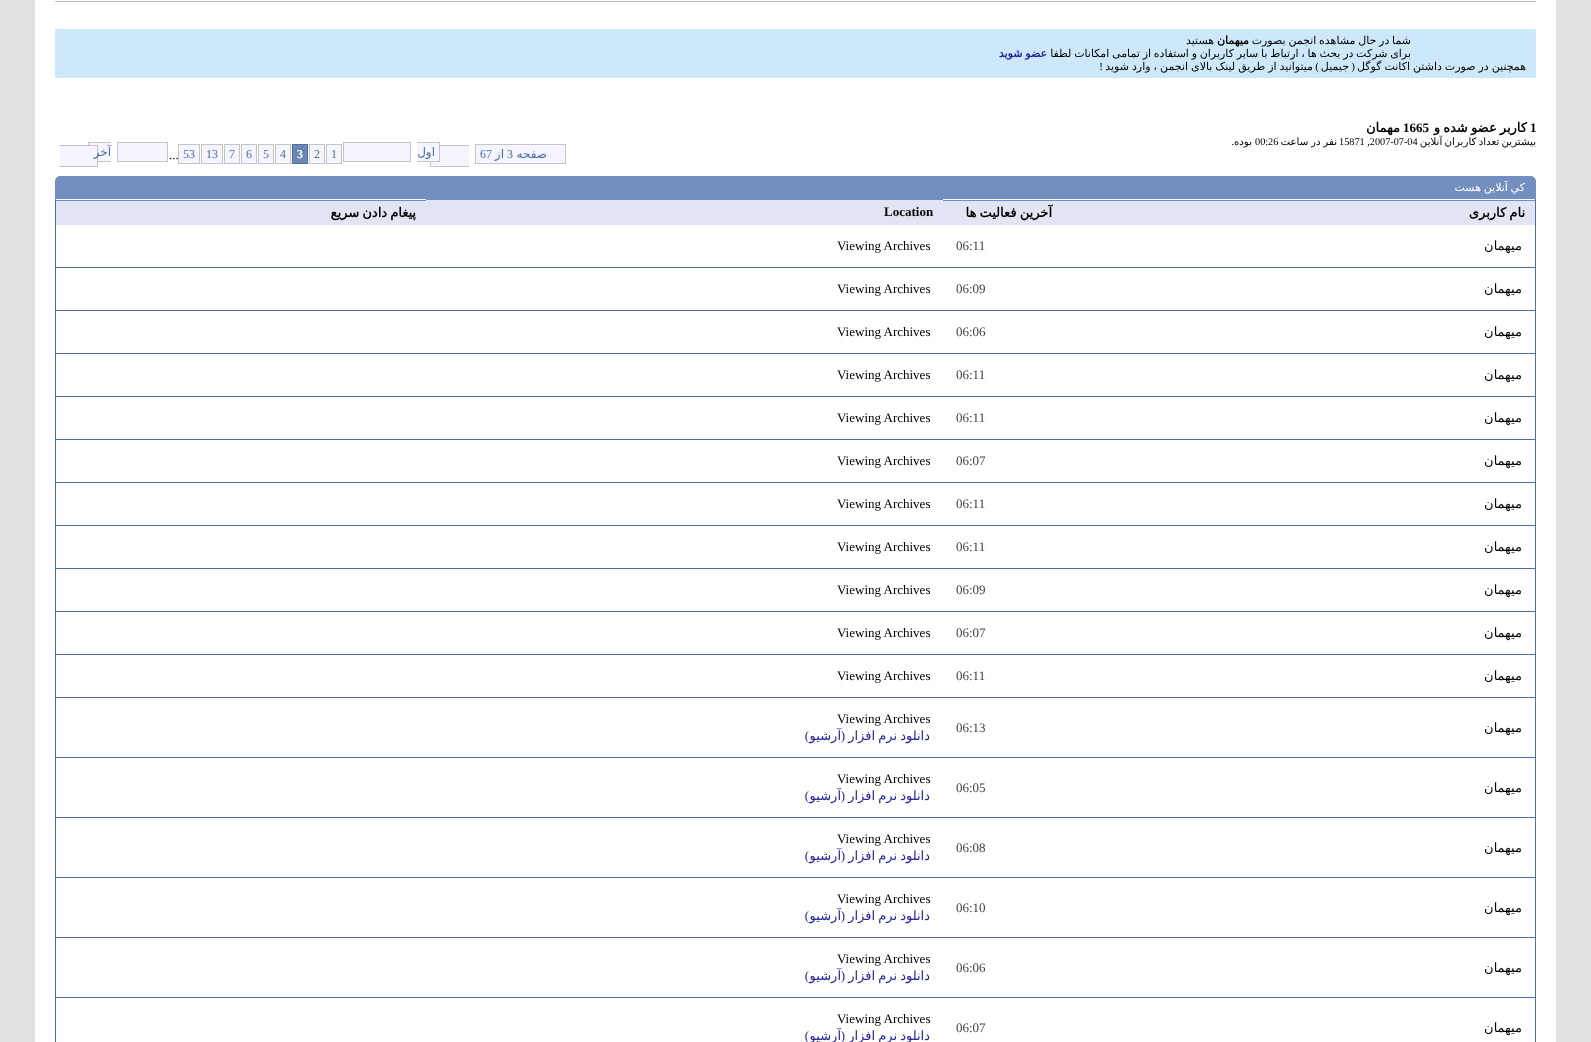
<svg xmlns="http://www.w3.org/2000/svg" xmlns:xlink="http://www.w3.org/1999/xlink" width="1591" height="1042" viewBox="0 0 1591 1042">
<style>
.cls-1{font:11px DejaVu Sans;direction:rtl;fill:#000000}
.cls-2{font:bold 11px DejaVu Sans;direction:rtl;fill:#000000}
.cls-3{font:bold 11px DejaVu Sans;direction:rtl;fill:#22229c}
.cls-4{font:11px Liberation Serif;direction:rtl;fill:#000000}
.cls-5{font:bold 13px Liberation Serif;fill:#000000}
.cls-6{font:bold 13px DejaVu Sans;direction:rtl;fill:#000000}
.cls-7{font:10.25px DejaVu Sans;direction:rtl;fill:#000000}
.cls-8{font:10.25px Liberation Serif;fill:#000000}
.cls-9{font:10.25px Liberation Serif;direction:rtl;fill:#000000}
.cls-10{font:12px DejaVu Sans;direction:rtl;fill:#4b6da6}
.cls-11{font:12px Liberation Serif;fill:#4b6da6}
.cls-12{font:bold 12px Liberation Serif;fill:#ffffff}
.cls-13{font:13px Liberation Serif;fill:#000000}
.cls-14{font:11px DejaVu Sans;direction:rtl;fill:#ffffff}
.cls-15{font:13px DejaVu Sans;direction:rtl;fill:#000000}
.cls-16{font:13px Liberation Serif;fill:#3e3e3e}
.cls-17{font:13px DejaVu Sans;direction:rtl;fill:#22229c}
.cls-18{font:13px Liberation Serif;direction:rtl;fill:#22229c}
</style>
<rect width="100%" height="100%" fill="#e1e1e2"/>
<rect fill="#ffffff" x="35" y="0" width="1521" height="1042"/>
<rect fill="#c0c0c0" x="55" y="1" width="1481" height="1"/>
<rect fill="#cde9f9" x="55" y="29" width="1481" height="49"/>
<rect fill="#f5f5ff" x="507" y="144" width="6" height="20"/>
<rect fill="#c4c4c4" x="507" y="144" width="59" height="1"/>
<rect fill="#c4c4c4" x="565" y="144" width="1" height="20"/>
<rect fill="#c4c4c4" x="507" y="163" width="6" height="1"/>
<rect fill="#f5f5ff" x="513" y="145" width="52" height="18"/>
<rect fill="#c4c4c4" x="513" y="163" width="53" height="1"/>
<rect fill="#f5f5ff" x="476" y="145" width="31" height="18"/>
<rect fill="#c4c4c4" x="475" y="144" width="32" height="1"/>
<rect fill="#c4c4c4" x="475" y="163" width="32" height="1"/>
<rect fill="#c4c4c4" x="475" y="144" width="1" height="20"/>
<rect fill="#f5f5ff" x="431" y="146" width="38" height="20"/>
<rect fill="#c4c4c4" x="440" y="145" width="29" height="1"/>
<rect fill="#c4c4c4" x="430" y="166" width="39" height="1"/>
<rect fill="#c4c4c4" x="430" y="162" width="1" height="5"/>
<rect fill="#f5f5ff" x="417" y="143" width="22" height="18"/>
<rect fill="#c4c4c4" x="417" y="142" width="23" height="1"/>
<rect fill="#c4c4c4" x="439" y="142" width="1" height="20"/>
<rect fill="#c4c4c4" x="417" y="161" width="23" height="1"/>
<rect fill="#f5f5ff" stroke="#c4c4c4" x="343.5" y="142.5" width="67" height="19"/>
<rect fill="#f5f5ff" stroke="#c4c4c4" x="326.5" y="144.5" width="15" height="19"/>
<rect fill="#f5f5ff" stroke="#c4c4c4" x="309.5" y="144.5" width="15" height="19"/>
<rect fill="#6d86b4" stroke="#4b6da6" x="292.5" y="144.5" width="15" height="19"/>
<rect fill="#f5f5ff" stroke="#c4c4c4" x="275.5" y="144.5" width="15" height="19"/>
<rect fill="#f5f5ff" stroke="#c4c4c4" x="258.5" y="144.5" width="15" height="19"/>
<rect fill="#f5f5ff" stroke="#c4c4c4" x="241.5" y="144.5" width="15" height="19"/>
<rect fill="#f5f5ff" stroke="#c4c4c4" x="224.5" y="144.5" width="15" height="19"/>
<rect fill="#f5f5ff" stroke="#c4c4c4" x="201.5" y="144.5" width="21" height="19"/>
<rect fill="#f5f5ff" stroke="#c4c4c4" x="178.5" y="144.5" width="21" height="19"/>
<rect fill="#f5f5ff" stroke="#c4c4c4" x="117.5" y="142.5" width="50" height="19"/>
<rect fill="#f5f5ff" x="89" y="143" width="22" height="18"/>
<rect fill="#c4c4c4" x="88" y="142" width="23" height="1"/>
<rect fill="#c4c4c4" x="98" y="161" width="13" height="1"/>
<rect fill="#c4c4c4" x="88" y="142" width="1" height="3"/>
<rect fill="#f5f5ff" x="60" y="146" width="37" height="20"/>
<rect fill="#c4c4c4" x="60" y="145" width="38" height="1"/>
<rect fill="#c4c4c4" x="97" y="145" width="1" height="22"/>
<rect fill="#c4c4c4" x="60" y="166" width="38" height="1"/>
<path fill="#738fbf" stroke="#738fbf" d="M60 176.5H1531C1533.5 176.5 1535.5 178.5 1535.5 181V198.5H55.5V181C55.5 178.5 57.5 176.5 60 176.5Z"/>
<rect fill="#4b6da6" x="1535" y="199" width="1" height="843"/>
<rect fill="#4b6da6" x="55" y="199" width="1" height="843"/>
<rect fill="#e1e4f3" x="943" y="201" width="592" height="24"/>
<rect fill="#738fbf" x="943" y="200" width="592" height="1"/>
<rect fill="#e1e4f3" x="426" y="200" width="517" height="25"/>
<rect fill="#738fbf" x="426" y="199" width="517" height="1"/>
<rect fill="#e1e4f3" x="56" y="201" width="370" height="24"/>
<rect fill="#738fbf" x="56" y="200" width="370" height="1"/>
<rect fill="#4b6da6" x="56" y="267" width="1480" height="1"/>
<rect fill="#4b6da6" x="56" y="310" width="1480" height="1"/>
<rect fill="#4b6da6" x="56" y="353" width="1480" height="1"/>
<rect fill="#4b6da6" x="56" y="396" width="1480" height="1"/>
<rect fill="#4b6da6" x="56" y="439" width="1480" height="1"/>
<rect fill="#4b6da6" x="56" y="482" width="1480" height="1"/>
<rect fill="#4b6da6" x="56" y="525" width="1480" height="1"/>
<rect fill="#4b6da6" x="56" y="568" width="1480" height="1"/>
<rect fill="#4b6da6" x="56" y="611" width="1480" height="1"/>
<rect fill="#4b6da6" x="56" y="654" width="1480" height="1"/>
<rect fill="#4b6da6" x="56" y="697" width="1480" height="1"/>
<rect fill="#4b6da6" x="56" y="757" width="1480" height="1"/>
<rect fill="#4b6da6" x="56" y="817" width="1480" height="1"/>
<rect fill="#4b6da6" x="56" y="877" width="1480" height="1"/>
<rect fill="#4b6da6" x="56" y="937" width="1480" height="1"/>
<rect fill="#4b6da6" x="56" y="997" width="1480" height="1"/>
<text class="cls-1" x="1411" y="44" word-spacing="-0.75">شما در حال مشاهده انجمن بصورت</text>
<text class="cls-2" x="1249" y="44">میهمان</text>
<text class="cls-1" x="1214" y="44">هستید</text>
<text class="cls-1" x="1411" y="57" word-spacing="-0.75">برای شرکت در بحث ها ، ارتباط با سایر کاربران و استفاده از تمامی امکانات لطفا</text>
<text class="cls-3" x="1047" y="57" word-spacing="-0.75">عضو شوید</text>
<text class="cls-1" x="1526" y="70" word-spacing="-0.5">همچنین در صورت داشتن اکانت گوگل</text>
<text class="cls-1" x="1349" y="70">جیمیل</text>
<text class="cls-1" x="1313" y="70" word-spacing="-0.5">میتوانید از طریق لینک بالای انجمن ، وارد شوید</text>
<text class="cls-4" x="1103" y="70">!</text>
<text class="cls-4" x="1355" y="70">(</text>
<text class="cls-4" x="1319" y="70">)</text>
<text class="cls-5" x="1530" y="132">1</text>
<text class="cls-6" x="1527" y="132" word-spacing="-1">کاربر عضو شده و</text>
<text class="cls-5" x="1403" y="132">1665</text>
<text class="cls-6" x="1400" y="132">مهمان</text>
<text class="cls-7" x="1536" y="145" word-spacing="-1">بيشترين تعداد کاربران آنلاين</text>
<text class="cls-8" x="1339" y="145">15871 ,2007-07-04</text>
<text class="cls-7" x="1337" y="145" word-spacing="-0.5">نفر در ساعت</text>
<text class="cls-8" x="1255" y="145">00:26</text>
<text class="cls-7" x="1252" y="145">بوده</text>
<text class="cls-9" x="1234" y="145">.</text>
<text class="cls-10" x="547" y="158">صفحه</text>
<text class="cls-11" x="507" y="158">3</text>
<text class="cls-10" x="504" y="158">از</text>
<text class="cls-11" x="480" y="158">67</text>
<text class="cls-10" x="435" y="156">اول</text>
<text class="cls-11" x="331" y="158">1</text>
<text class="cls-11" x="314" y="158">2</text>
<text class="cls-12" x="297" y="158">3</text>
<text class="cls-11" x="280" y="158">4</text>
<text class="cls-11" x="263" y="158">5</text>
<text class="cls-11" x="246" y="158">6</text>
<text class="cls-11" x="229" y="158">7</text>
<text class="cls-11" x="206" y="158">13</text>
<text class="cls-11" x="183" y="158">53</text>
<text class="cls-10" x="111" y="156">آخر</text>
<text class="cls-13" x="169" y="159">...</text>
<text class="cls-14" x="1525" y="191" word-spacing="-0.75">کي آنلاين هست</text>
<text class="cls-6" x="1525" y="217" word-spacing="-1">نام کاربری</text>
<text class="cls-6" x="1052" y="217" word-spacing="-1">آخرين فعاليت ها</text>
<text class="cls-5" x="884" y="216">Location</text>
<text class="cls-6" x="416" y="217" word-spacing="-1">پيغام دادن سريع</text>
<text class="cls-15" x="1522" y="250">ميهمان</text>
<text class="cls-16" x="956" y="250">06:11</text>
<text class="cls-13" x="837" y="250">Viewing Archives</text>
<text class="cls-15" x="1522" y="293">ميهمان</text>
<text class="cls-16" x="956" y="293">06:09</text>
<text class="cls-13" x="837" y="293">Viewing Archives</text>
<text class="cls-15" x="1522" y="336">ميهمان</text>
<text class="cls-16" x="956" y="336">06:06</text>
<text class="cls-13" x="837" y="336">Viewing Archives</text>
<text class="cls-15" x="1522" y="379">ميهمان</text>
<text class="cls-16" x="956" y="379">06:11</text>
<text class="cls-13" x="837" y="379">Viewing Archives</text>
<text class="cls-15" x="1522" y="422">ميهمان</text>
<text class="cls-16" x="956" y="422">06:11</text>
<text class="cls-13" x="837" y="422">Viewing Archives</text>
<text class="cls-15" x="1522" y="465">ميهمان</text>
<text class="cls-16" x="956" y="465">06:07</text>
<text class="cls-13" x="837" y="465">Viewing Archives</text>
<text class="cls-15" x="1522" y="508">ميهمان</text>
<text class="cls-16" x="956" y="508">06:11</text>
<text class="cls-13" x="837" y="508">Viewing Archives</text>
<text class="cls-15" x="1522" y="551">ميهمان</text>
<text class="cls-16" x="956" y="551">06:11</text>
<text class="cls-13" x="837" y="551">Viewing Archives</text>
<text class="cls-15" x="1522" y="594">ميهمان</text>
<text class="cls-16" x="956" y="594">06:09</text>
<text class="cls-13" x="837" y="594">Viewing Archives</text>
<text class="cls-15" x="1522" y="637">ميهمان</text>
<text class="cls-16" x="956" y="637">06:07</text>
<text class="cls-13" x="837" y="637">Viewing Archives</text>
<text class="cls-15" x="1522" y="680">ميهمان</text>
<text class="cls-16" x="956" y="680">06:11</text>
<text class="cls-13" x="837" y="680">Viewing Archives</text>
<text class="cls-15" x="1522" y="732">ميهمان</text>
<text class="cls-16" x="956" y="732">06:13</text>
<text class="cls-13" x="837" y="723">Viewing Archives</text>
<text class="cls-17" x="930" y="740" word-spacing="-1">دانلود نرم افزار</text>
<text class="cls-18" x="809" y="740">)</text>
<text class="cls-17" x="841" y="740">آرشیو</text>
<text class="cls-18" x="845" y="740">(</text>
<text class="cls-15" x="1522" y="792">ميهمان</text>
<text class="cls-16" x="956" y="792">06:05</text>
<text class="cls-13" x="837" y="783">Viewing Archives</text>
<text class="cls-17" x="930" y="800" word-spacing="-1">دانلود نرم افزار</text>
<text class="cls-18" x="809" y="800">)</text>
<text class="cls-17" x="841" y="800">آرشیو</text>
<text class="cls-18" x="845" y="800">(</text>
<text class="cls-15" x="1522" y="852">ميهمان</text>
<text class="cls-16" x="956" y="852">06:08</text>
<text class="cls-13" x="837" y="843">Viewing Archives</text>
<text class="cls-17" x="930" y="860" word-spacing="-1">دانلود نرم افزار</text>
<text class="cls-18" x="809" y="860">)</text>
<text class="cls-17" x="841" y="860">آرشیو</text>
<text class="cls-18" x="845" y="860">(</text>
<text class="cls-15" x="1522" y="912">ميهمان</text>
<text class="cls-16" x="956" y="912">06:10</text>
<text class="cls-13" x="837" y="903">Viewing Archives</text>
<text class="cls-17" x="930" y="920" word-spacing="-1">دانلود نرم افزار</text>
<text class="cls-18" x="809" y="920">)</text>
<text class="cls-17" x="841" y="920">آرشیو</text>
<text class="cls-18" x="845" y="920">(</text>
<text class="cls-15" x="1522" y="972">ميهمان</text>
<text class="cls-16" x="956" y="972">06:06</text>
<text class="cls-13" x="837" y="963">Viewing Archives</text>
<text class="cls-17" x="930" y="980" word-spacing="-1">دانلود نرم افزار</text>
<text class="cls-18" x="809" y="980">)</text>
<text class="cls-17" x="841" y="980">آرشیو</text>
<text class="cls-18" x="845" y="980">(</text>
<text class="cls-15" x="1522" y="1032">ميهمان</text>
<text class="cls-16" x="956" y="1032">06:07</text>
<text class="cls-13" x="837" y="1023">Viewing Archives</text>
<text class="cls-17" x="930" y="1040" word-spacing="-1">دانلود نرم افزار</text>
<text class="cls-17" x="841" y="1040">آرشیو</text>
<text class="cls-18" x="845" y="1040">(</text>
<text class="cls-18" x="809" y="1040">)</text>
</svg>
